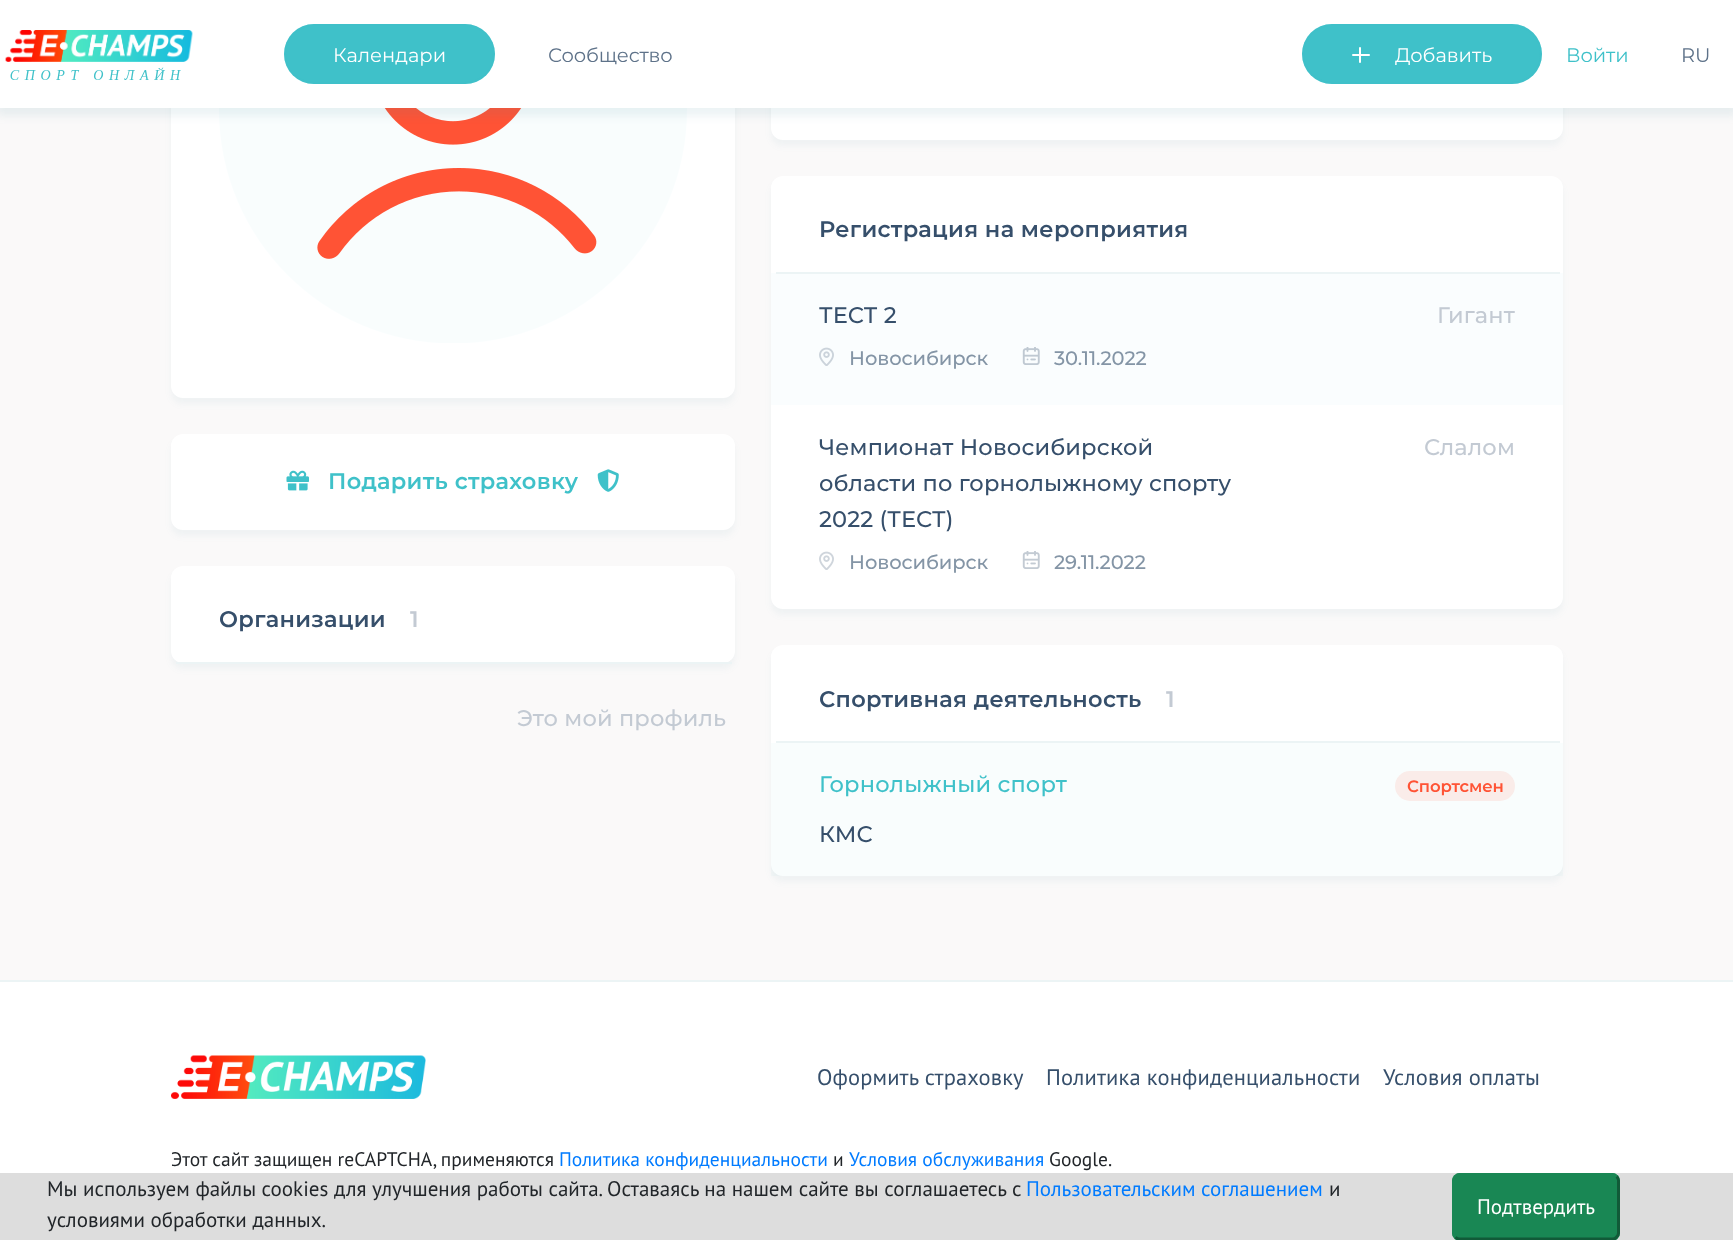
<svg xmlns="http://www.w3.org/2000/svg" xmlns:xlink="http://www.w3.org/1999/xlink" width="1733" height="1240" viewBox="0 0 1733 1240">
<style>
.cls-1{font:19.5px Montserrat;fill:#ffffff}
.cls-2{font:19.5px Montserrat;letter-spacing:-0.1px;fill:#5e7289}
.cls-3{font:19.5px Montserrat;letter-spacing:-0.1px;fill:#3fc1c9}
.cls-4{font:600 22.5px Montserrat;letter-spacing:0.3px;fill:#3fc1c9}
.cls-5{font:600 22.5px Montserrat;letter-spacing:0.3px;fill:#364f6b}
.cls-6{font:600 22.5px Montserrat;letter-spacing:0.3px;fill:#c3cad3}
.cls-7{font:500 22.5px Montserrat;letter-spacing:0.15px;fill:#c3cad3}
.cls-8{font:500 22.5px Montserrat;letter-spacing:0.15px;fill:#364f6b}
.cls-9{font:500 19.5px Montserrat;letter-spacing:-0.1px;fill:#8495a6}
.cls-10{font:500 22.5px Montserrat;letter-spacing:0.15px;fill:#3fc1c9}
.cls-11{font:600 16.5px Montserrat;letter-spacing:-0.1px;fill:#ff5335}
.cls-12{font:22.5px PT Sans;letter-spacing:0.15px;fill:#364f6b}
.cls-13{font:19.5px PT Sans;fill:#212529}
.cls-14{font:19.5px PT Sans;fill:#007bff}
.cls-15{font:21px PT Sans;fill:#212529}
.cls-16{font:21px PT Sans;fill:#007bff}
.cls-17{font:21px PT Sans;fill:#ffffff}
</style>
<rect width="100%" height="100%" fill="#faf9f9"/>
<rect fill="#458e9d" fill-opacity="0.06" filter="blur(3px)" x="171" y="-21" width="564" height="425" rx="12"/>
<rect fill="#ffffff" x="171" y="-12" width="564" height="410" rx="12"/>
<image xlink:href="image1.png" x="219" y="108" width="468" height="235"/>
<rect fill="#458e9d" fill-opacity="0.06" filter="blur(3px)" x="771" y="-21" width="792" height="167" rx="12"/>
<rect fill="#ffffff" x="771" y="-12" width="792" height="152" rx="12"/>
<rect fill="#458e9d" fill-opacity="0.1" filter="blur(4px)" x="-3" y="2" width="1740" height="114"/>
<rect fill="#ffffff" x="0" y="0" width="1733" height="108"/>
<image xlink:href="image0.png" x="5" y="30" width="188" height="50"/>
<rect fill="#3fc1c9" x="284" y="24" width="211" height="60" rx="30"/>
<rect fill="none" stroke="#3fc1c9" stroke-opacity="0.3" stroke-width="2" x="285" y="25" width="209" height="58" rx="29"/>
<rect fill="#3fc1c9" x="1302" y="24" width="240" height="60" rx="30"/>
<rect fill="none" stroke="#3fc1c9" stroke-opacity="0.3" stroke-width="2" x="1303" y="25" width="238" height="58" rx="29"/>
<rect fill="#ffffff" x="1359" y="47" width="2" height="16" rx="1"/>
<rect fill="#ffffff" x="1352" y="54" width="18" height="2" rx="1"/>
<rect fill="#458e9d" fill-opacity="0.06" filter="blur(3px)" x="171" y="440" width="564" height="96" rx="12"/>
<rect fill="#ffffff" x="171" y="434" width="564" height="96" rx="12"/>
<image xlink:href="image2.png" x="286" y="470" width="23" height="21"/>
<image xlink:href="image3.png" x="597" y="469" width="22" height="23"/>
<rect fill="#458e9d" fill-opacity="0.06" filter="blur(3px)" x="171" y="572" width="564" height="97" rx="12"/>
<rect fill="#ffffff" x="171" y="566" width="564" height="97" rx="12"/>
<rect fill="#ecf4f5" x="176" y="662" width="556" height="2"/>
<rect fill="#458e9d" fill-opacity="0.06" filter="blur(3px)" x="771" y="182" width="792" height="433" rx="12"/>
<rect fill="#ffffff" x="771" y="176" width="792" height="433" rx="12"/>
<rect fill="#fafdfe" x="771" y="273" width="792" height="132"/>
<rect fill="#ecf4f5" x="776" y="272" width="784" height="2"/>
<image xlink:href="image4.png" x="819" y="347" width="15" height="19"/>
<image xlink:href="image5.png" x="1022" y="347" width="18" height="18"/>
<image xlink:href="image6.png" x="819" y="551" width="15" height="19"/>
<image xlink:href="image7.png" x="1022" y="551" width="18" height="18"/>
<rect fill="#458e9d" fill-opacity="0.06" filter="blur(3px)" x="771" y="651" width="792" height="231" rx="12"/>
<rect fill="#ffffff" x="771" y="645" width="792" height="231" rx="12"/>
<rect fill="#ecf4f5" x="776" y="741" width="784" height="2"/>
<rect fill="#3fc1c9" fill-opacity="0.03" x="771" y="743" width="792" height="133"/>
<rect fill="#faece9" x="1395" y="771" width="120" height="30" rx="15"/>
<rect fill="#ffffff" x="0" y="982" width="1733" height="191"/>
<rect fill="#ecf4f5" x="0" y="980" width="1733" height="2"/>
<image xlink:href="image8.png" x="171" y="1055" width="255" height="44"/>
<rect fill="#dddddd" x="0" y="1173" width="1733" height="67"/>
<rect fill="#198754" x="1452" y="1173" width="168" height="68" rx="8"/>
<path fill="none" stroke="#115a38" stroke-width="3" d="M1616.5 1176.5C1618 1177.5 1618.5 1179 1618.5 1180.5V1233C1618.5 1234.5 1618 1236 1616.5 1237C1615.5 1238.5 1614 1239 1612.5 1239H1459.5C1458 1239 1456.5 1238.5 1455.5 1237"/>
<path fill="none" stroke="#198754" stroke-width="3" d="M1455.5 1237C1454 1236 1453.5 1234.5 1453.5 1233V1180.5C1453.5 1179 1454 1177.5 1455.5 1176.5C1456.5 1175 1458 1174.5 1459.5 1174.5H1612.5C1614 1174.5 1615.5 1175 1616.5 1176.5"/>
<text class="cls-1" x="333" y="62">Календари</text>
<text class="cls-2" x="548" y="62">Сообщество</text>
<text class="cls-1" x="1395" y="62">Добавить</text>
<text class="cls-3" x="1566" y="62">Войти</text>
<text class="cls-2" x="1681" y="62">RU</text>
<text class="cls-4" x="328" y="489">Подарить страховку</text>
<text class="cls-5" x="219" y="627">Организации</text>
<text class="cls-6" x="410" y="627">1</text>
<text class="cls-7" x="517" y="726">Это мой профиль</text>
<text class="cls-5" x="819" y="237">Регистрация на мероприятия</text>
<text class="cls-8" x="819" y="323">ТЕСТ 2</text>
<text class="cls-7" x="1437" y="323">Гигант</text>
<text class="cls-9" x="849" y="365">Новосибирск</text>
<text class="cls-9" x="1054" y="365">30.11.2022</text>
<text class="cls-8"><tspan x="819" y="455">Чемпионат Новосибирской</tspan><tspan x="819" y="491">области по горнолыжному спорту</tspan><tspan x="819" y="527">2022 (ТЕСТ)</tspan></text>
<text class="cls-7" x="1424" y="455">Слалом</text>
<text class="cls-9" x="849" y="569">Новосибирск</text>
<text class="cls-9" x="1054" y="569">29.11.2022</text>
<text class="cls-5" x="819" y="707">Спортивная деятельность</text>
<text class="cls-6" x="1166" y="707">1</text>
<text class="cls-10" x="819" y="792">Горнолыжный спорт</text>
<text class="cls-11" x="1407" y="792">Спортсмен</text>
<text class="cls-8" x="819" y="842">КМС</text>
<text class="cls-12" x="817" y="1085">Оформить страховку</text>
<text class="cls-12" x="1046" y="1085">Политика конфиденциальности</text>
<text class="cls-12" x="1383" y="1085">Условия оплаты</text>
<text class="cls-13" x="171" y="1166">Этот сайт защищен reCAPTCHA, применяются</text>
<text class="cls-14" x="559" y="1166">Политика конфиденциальности</text>
<text class="cls-13" x="833" y="1166">и</text>
<text class="cls-14" x="849" y="1166">Условия обслуживания</text>
<text class="cls-13" x="1049" y="1166">Google.</text>
<text class="cls-15" x="47" y="1196">Мы используем файлы cookies для улучшения работы сайта. Оставаясь на нашем сайте вы соглашаетесь с</text>
<text class="cls-16" x="1026" y="1196">Пользовательским соглашением</text>
<text class="cls-15" x="1329" y="1196">и</text>
<text class="cls-15" x="47" y="1227">условиями обработки данных.</text>
<text class="cls-17" x="1477" y="1214">Подтвердить</text>
</svg>
